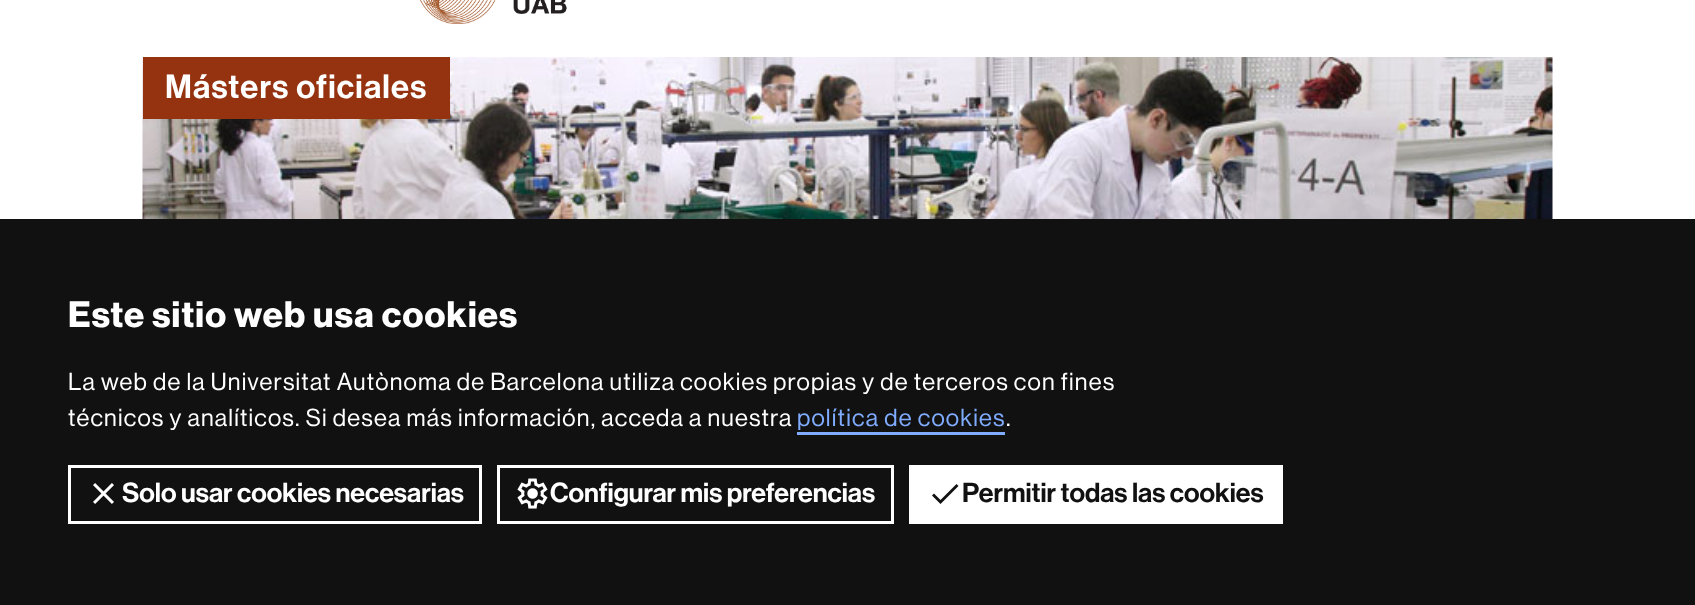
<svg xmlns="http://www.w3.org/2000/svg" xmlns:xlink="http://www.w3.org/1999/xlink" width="1695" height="605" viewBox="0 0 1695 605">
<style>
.cls-1{font:500 33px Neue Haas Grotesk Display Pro;letter-spacing:1.2px;fill:#ffffff}
.cls-2{font:bold 36px Neue Haas Grotesk Display Pro;letter-spacing:1.2px;fill:#ffffff}
.cls-3{font:500 24px 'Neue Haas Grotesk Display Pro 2';letter-spacing:1.2px;fill:#ffffff}
.cls-4{font:500 24px 'Neue Haas Grotesk Display Pro 2';letter-spacing:1.2px;fill:#80acff}
.cls-5{font:500 27px Neue Haas Grotesk Display Pro;fill:#ffffff}
.cls-6{font:500 27px Neue Haas Grotesk Display Pro;fill:#111111}
</style>
<rect width="100%" height="100%" fill="#ffffff"/>
<image xlink:href="image0.png" x="419" y="0" width="148" height="24"/>
<image xlink:href="image1.png" x="142" y="57" width="1411" height="162"/>
<rect fill="#95320f" x="143" y="57" width="307" height="62"/>
<rect fill="#111111" x="0" y="219" width="1695" height="386"/>
<rect fill="#80acff" x="797" y="432" width="208" height="3"/>
<rect fill="none" stroke="#ffffff" stroke-width="3" x="69.5" y="466.5" width="411" height="56"/>
<image xlink:href="image2.png" x="93" y="483" width="21" height="21"/>
<rect fill="none" stroke="#ffffff" stroke-width="3" x="498.5" y="466.5" width="394" height="56"/>
<image xlink:href="image3.png" x="517" y="478" width="31" height="31"/>
<rect fill="#ffffff" x="909" y="465" width="374" height="59"/>
<path fill="#111111" d="M940.5 500L934 493.5L932 495.5L940.5 504L958.5 486L956.5 484Z"/>
<text class="cls-1" x="165" y="98">Másters oficiales</text>
<text class="cls-2" x="68" y="327">Este sitio web usa cookies</text>
<text class="cls-3"><tspan x="68" y="390">La web de la Universitat Autònoma de Barcelona utiliza cookies propias y de terceros con fines</tspan><tspan x="68" y="426">técnicos y analíticos. Si desea más información, acceda a nuestra</tspan></text>
<text class="cls-4" x="797" y="426">política de cookies</text>
<text class="cls-3" x="1006" y="426">.</text>
<text class="cls-5" x="122" y="502">Solo usar cookies necesarias</text>
<text class="cls-5" x="550" y="502">Configurar mis preferencias</text>
<text class="cls-6" x="962" y="502">Permitir todas las cookies</text>
</svg>
